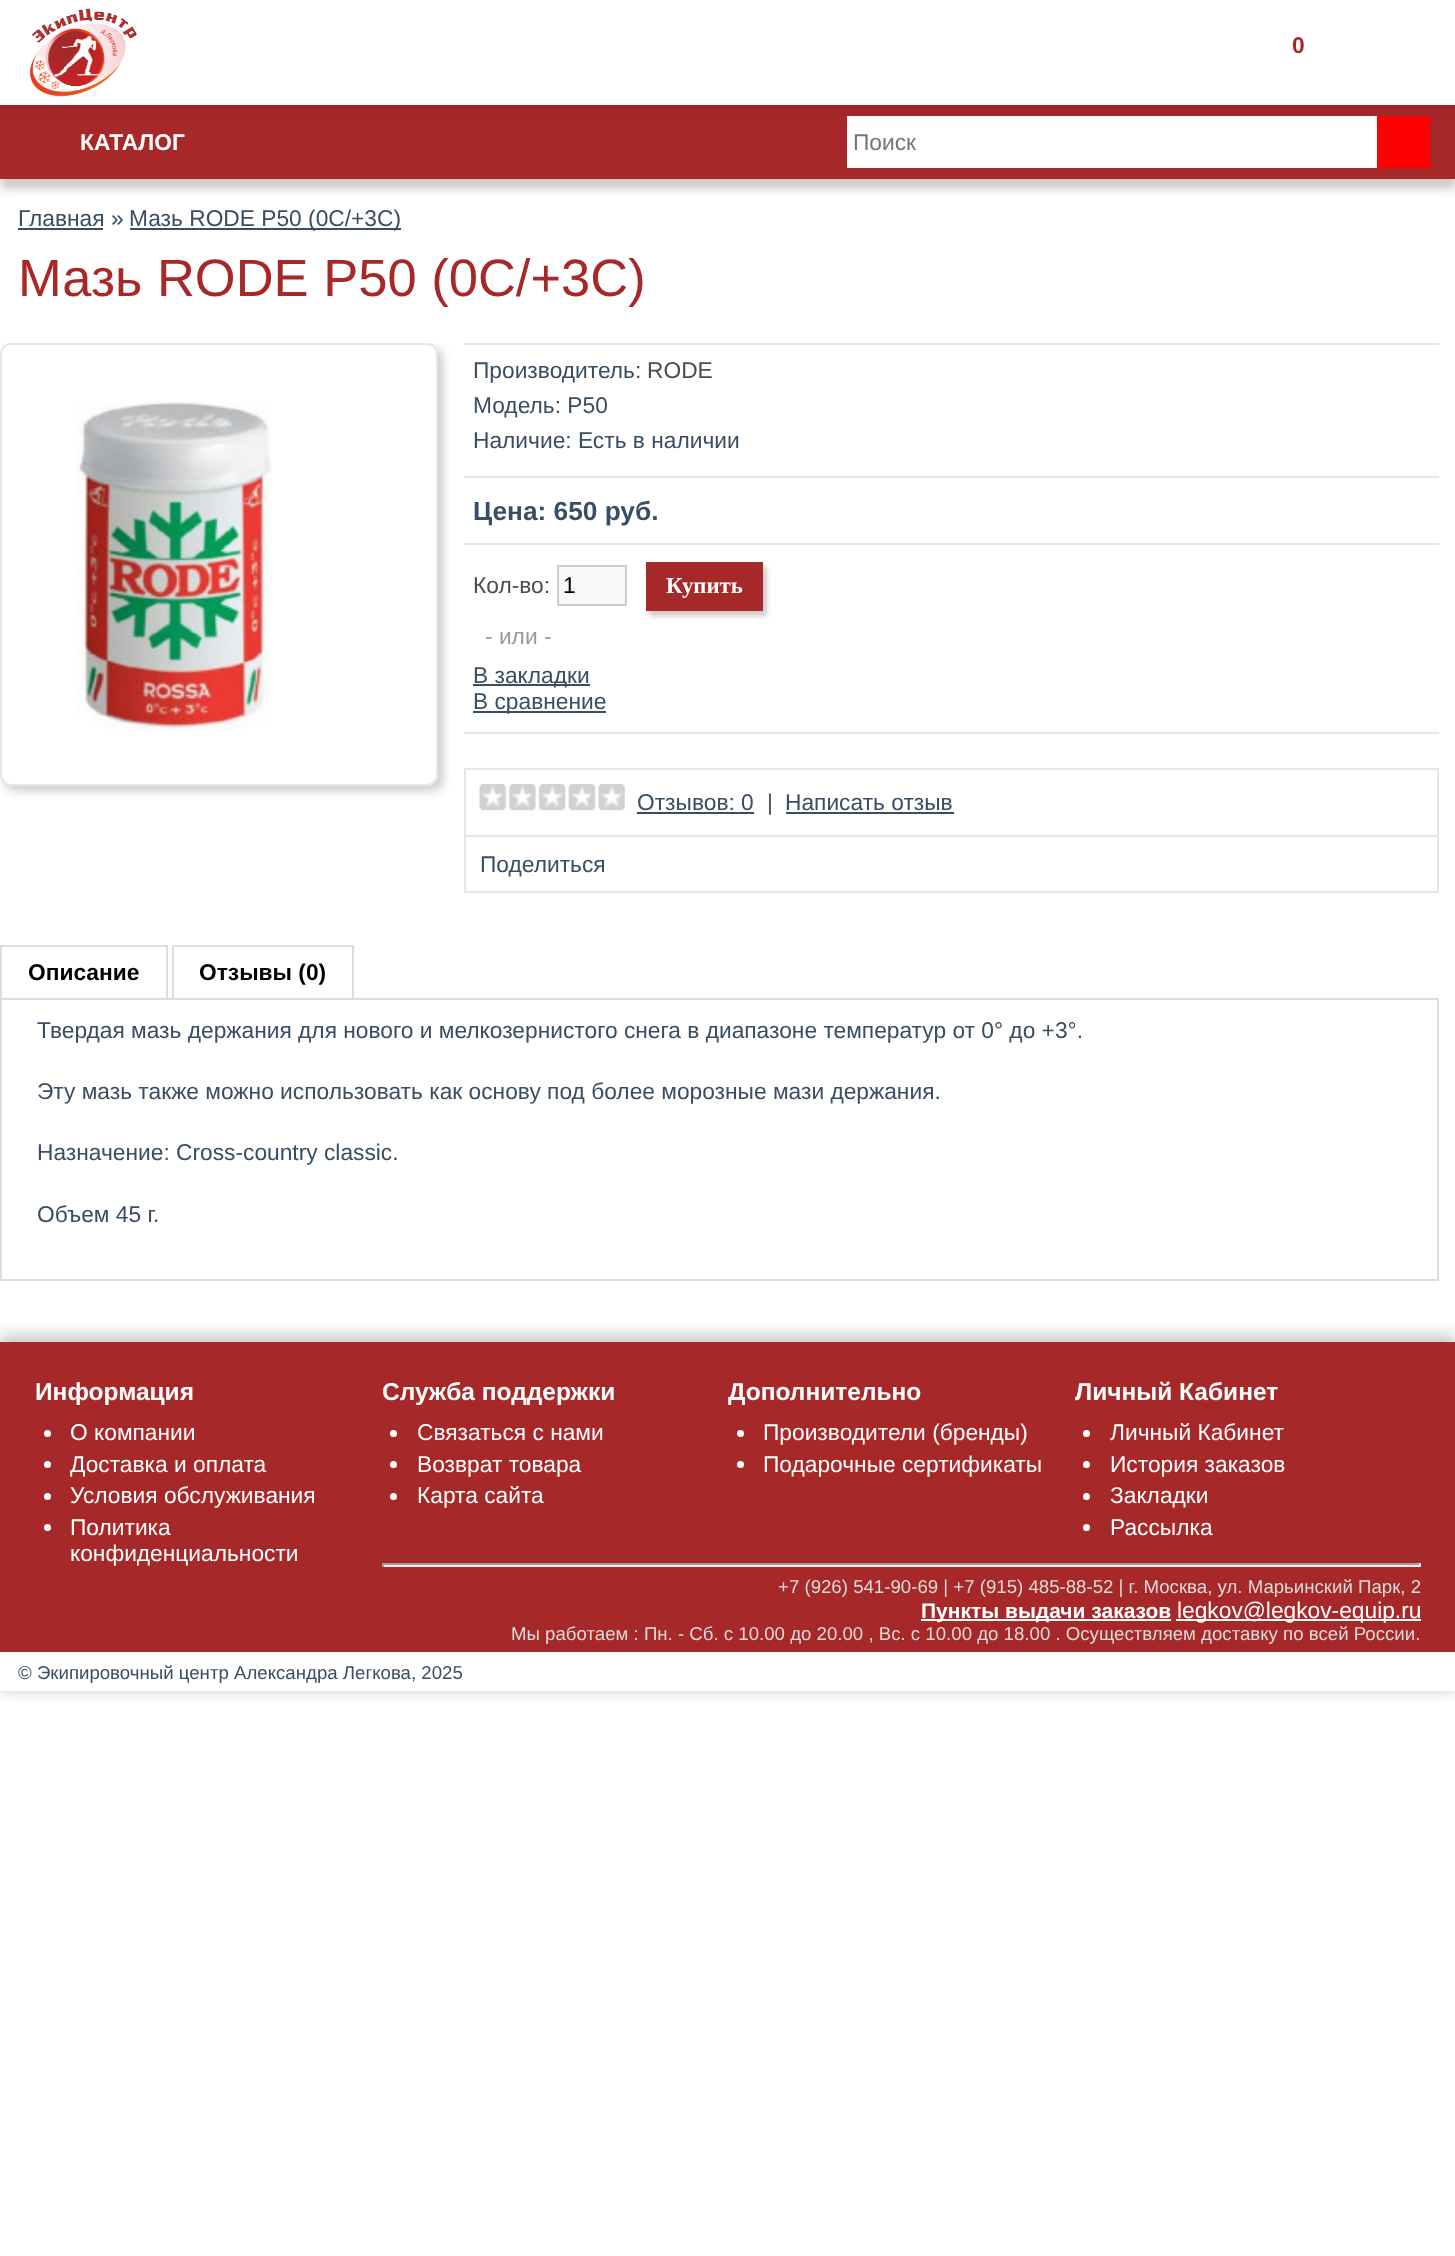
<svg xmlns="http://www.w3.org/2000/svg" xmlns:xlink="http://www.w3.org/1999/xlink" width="1455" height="2256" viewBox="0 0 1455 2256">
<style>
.cls-1{font:bold 22.75px Liberation Sans;fill:#a72829}
.cls-2{font:bold 22.75px Liberation Sans;fill:#ffffff}
.cls-3{font:22.75px Liberation Sans;fill:#757575}
.cls-4{font:22.75px Liberation Sans;fill:#394e63}
.cls-5{font:52.5px Liberation Sans;fill:#a72829}
.cls-6{font:22.75px Liberation Sans;fill:#4d4d4d}
.cls-7{font:bold 26.25px Liberation Sans;fill:#394e63}
.cls-8{font:22.75px Liberation Sans;fill:#000000}
.cls-9{font:bold 22.75px Liberation Serif;fill:#ffffff}
.cls-10{font:22.75px Liberation Sans;fill:#999999}
.cls-11{font:bold 22.75px Liberation Sans;fill:#000000}
.cls-12{font:bold 24.5px Liberation Sans;fill:#ffffff}
.cls-13{font:22.75px Liberation Sans;fill:#ffffff}
.cls-14{font:18.65px Liberation Sans;fill:#dddddd}
.cls-15{font:bold 21px Liberation Sans;fill:#ffffff}
.cls-16{font:18.65px Liberation Sans;fill:#394e63}
</style>
<defs>
<clipPath id="clip1"><rect x="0" y="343" width="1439" height="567"/></clipPath>
<clipPath id="clip2"><path d="M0 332H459V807H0ZM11 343H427C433 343 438 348 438 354V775C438 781 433 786 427 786H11C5 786 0 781 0 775V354C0 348 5 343 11 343Z" clip-rule="evenodd"/></clipPath>
</defs>
<rect width="100%" height="100%" fill="#ffffff"/>
<rect fill="#cccccc" filter="blur(7px)" x="0" y="105" width="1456" height="1586"/>
<rect fill="#ffffff" x="0" y="179" width="1455" height="1512"/>
<rect fill="#cccccc" filter="blur(5px)" x="0" y="116" width="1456" height="73"/>
<rect fill="#a72829" x="0" y="105" width="1455" height="74"/>
<rect fill="#ffffff" x="847" y="116" width="530" height="52"/>
<rect fill="#ff0000" x="1377" y="116" width="53" height="52"/>
<rect fill="#000000" fill-opacity="0.15" filter="blur(9px)" x="0" y="0" width="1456" height="105"/>
<rect fill="#ffffff" x="0" y="0" width="1455" height="105"/>
<image xlink:href="image0.png" x="29" y="8" width="108" height="89"/>
<rect fill="#394e63" x="18" y="228" width="85" height="2"/>
<rect fill="#394e63" x="130" y="228" width="271" height="2"/>
<g clip-path="url(#clip1)">
<g clip-path="url(#clip2)">
<rect fill="#cccccc" filter="blur(5px)" x="5" y="348" width="438" height="443" rx="11"/>
</g>
</g>
<rect fill="none" stroke="#e7e7e7" stroke-width="2" x="1" y="344" width="436" height="441" rx="10"/>
<image xlink:href="image1.png" x="75" y="401" width="197" height="329"/>
<rect fill="#e7e7e7" x="464" y="343" width="975" height="2"/>
<rect fill="#e7e7e7" x="464" y="476" width="975" height="2"/>
<rect fill="#e7e7e7" x="464" y="543" width="975" height="2"/>
<rect fill="#e7e7e7" x="464" y="732" width="975" height="2"/>
<rect fill="#f8f8f8" stroke="#cccccc" stroke-width="2" x="558" y="566" width="68" height="39"/>
<rect fill="#cccccc" filter="blur(2.5px)" x="649" y="567" width="118" height="49"/>
<rect fill="#a72829" x="646" y="562" width="117" height="49"/>
<rect fill="#394e63" x="473" y="684" width="117" height="2"/>
<rect fill="#394e63" x="473" y="711" width="133" height="2"/>
<rect fill="#e7e7e7" x="464" y="768" width="975" height="2"/>
<rect fill="#e7e7e7" x="1437" y="768" width="2" height="125"/>
<rect fill="#e7e7e7" x="464" y="768" width="2" height="125"/>
<rect fill="#e7e7e7" x="466" y="835" width="971" height="2"/>
<image xlink:href="image2.png" x="479" y="784" width="146" height="27"/>
<rect fill="#394e63" x="637" y="812" width="117" height="2"/>
<rect fill="#394e63" x="786" y="812" width="168" height="2"/>
<rect fill="#e7e7e7" x="466" y="891" width="971" height="2"/>
<rect fill="#dddddd" x="0" y="998" width="1439" height="2"/>
<rect fill="#dddddd" x="0" y="945" width="168" height="2"/>
<rect fill="#dddddd" x="166" y="945" width="2" height="54"/>
<rect fill="#dddddd" x="0" y="945" width="2" height="54"/>
<rect fill="#dddddd" x="172" y="945" width="182" height="2"/>
<rect fill="#dddddd" x="352" y="945" width="2" height="53"/>
<rect fill="#dddddd" x="172" y="945" width="2" height="53"/>
<rect fill="#dddddd" x="1437" y="999" width="2" height="282"/>
<rect fill="#dddddd" x="0" y="1279" width="1439" height="2"/>
<rect fill="#dddddd" x="0" y="999" width="2" height="282"/>
<rect fill="#cccccc" filter="blur(7px)" x="0" y="1334" width="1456" height="309"/>
<rect fill="#a72829" x="0" y="1342" width="1455" height="310"/>
<circle fill="#ffffff" cx="47.5" cy="1433.5" r="3.5"/>
<circle fill="#ffffff" cx="47.5" cy="1464.5" r="3.5"/>
<circle fill="#ffffff" cx="47.5" cy="1496.5" r="3.5"/>
<circle fill="#ffffff" cx="47.5" cy="1527.5" r="3.5"/>
<circle fill="#ffffff" cx="393.5" cy="1433.5" r="3.5"/>
<circle fill="#ffffff" cx="393.5" cy="1464.5" r="3.5"/>
<circle fill="#ffffff" cx="393.5" cy="1496.5" r="3.5"/>
<circle fill="#ffffff" cx="740.5" cy="1433.5" r="3.5"/>
<circle fill="#ffffff" cx="740.5" cy="1464.5" r="3.5"/>
<circle fill="#ffffff" cx="1086.5" cy="1433.5" r="3.5"/>
<circle fill="#ffffff" cx="1086.5" cy="1464.5" r="3.5"/>
<circle fill="#ffffff" cx="1086.5" cy="1496.5" r="3.5"/>
<circle fill="#ffffff" cx="1086.5" cy="1527.5" r="3.5"/>
<rect fill="#9f9f9f" x="382" y="1563" width="1039" height="2"/>
<rect fill="#eeeeee" x="1419" y="1563" width="2" height="4"/>
<rect fill="#eeeeee" x="382" y="1565" width="1039" height="2"/>
<rect fill="#9f9f9f" x="382" y="1563" width="2" height="4"/>
<rect fill="#ffffff" x="921" y="1619" width="250" height="2"/>
<rect fill="#ffffff" x="1176" y="1619" width="245" height="2"/>
<text class="cls-1" x="1292" y="53">0</text>
<text class="cls-2" x="80" y="150">КАТАЛОГ</text>
<text class="cls-3" x="853" y="150">Поиск</text>
<text class="cls-4" x="18" y="226">Главная »</text>
<text class="cls-4" x="129" y="226">Мазь RODE P50 (0С/+3C)</text>
<text class="cls-5" x="18" y="296">Мазь RODE P50 (0С/+3C)</text>
<text class="cls-4" x="473" y="378">Производитель:</text>
<text class="cls-6" x="647" y="378">RODE</text>
<text class="cls-4"><tspan x="473" y="413">Модель: P50</tspan><tspan x="473" y="448">Наличие: Есть в наличии</tspan></text>
<text class="cls-7" x="473" y="520">Цена: 650 руб.</text>
<text class="cls-6" x="473" y="593">Кол-во:</text>
<text class="cls-8" x="563" y="593">1</text>
<text class="cls-9" x="666" y="593">Купить</text>
<text class="cls-10" x="485" y="644">- или -</text>
<text class="cls-4"><tspan x="473" y="683">В закладки</tspan><tspan x="473" y="709">В сравнение</tspan></text>
<text class="cls-4" x="637" y="810">Отзывов: 0</text>
<text class="cls-6" x="767" y="810">|</text>
<text class="cls-4" x="785" y="810">Написать отзыв</text>
<text class="cls-4" x="480" y="872">Поделиться</text>
<text class="cls-11" x="28" y="980">Описание</text>
<text class="cls-11" x="199" y="980">Отзывы (0)</text>
<text class="cls-4" x="37" y="1038">Твердая мазь держания для нового и мелкозернистого снега в диапазоне температур от 0° до +3°.</text>
<text class="cls-4" x="37" y="1099">Эту мазь также можно использовать как основу под более морозные мази держания.</text>
<text class="cls-4" x="37" y="1160">Назначение: Cross-country classic.</text>
<text class="cls-4" x="37" y="1222">Объем 45 г.</text>
<text class="cls-12" x="35" y="1400">Информация</text>
<text class="cls-13"><tspan x="70" y="1440">О компании</tspan><tspan x="70" y="1472">Доставка и оплата</tspan><tspan x="70" y="1503">Условия обслуживания</tspan><tspan x="70" y="1535">Политика</tspan><tspan x="70" y="1561">конфиденциальности</tspan></text>
<text class="cls-12" x="382" y="1400">Служба поддержки</text>
<text class="cls-13"><tspan x="417" y="1440">Связаться с нами</tspan><tspan x="417" y="1472">Возврат товара</tspan><tspan x="417" y="1503">Карта сайта</tspan></text>
<text class="cls-12" x="728" y="1400">Дополнительно</text>
<text class="cls-13"><tspan x="763" y="1440">Производители (бренды)</tspan><tspan x="763" y="1472">Подарочные сертификаты</tspan></text>
<text class="cls-12" x="1075" y="1400">Личный Кабинет</text>
<text class="cls-13"><tspan x="1110" y="1440">Личный Кабинет</tspan><tspan x="1110" y="1472">История заказов</tspan><tspan x="1110" y="1503">Закладки</tspan><tspan x="1110" y="1535">Рассылка</tspan></text>
<text class="cls-14" x="778" y="1593">+7 (926) 541-90-69 | +7 (915) 485-88-52 | г. Москва, ул. Марьинский Парк, 2</text>
<text class="cls-15" x="921" y="1618">Пункты выдачи заказов</text>
<text class="cls-13" x="1177" y="1618">legkov@legkov-equip.ru</text>
<text class="cls-14" x="511" y="1640">Мы работаем : Пн. - Сб. с 10.00 до 20.00 , Вс. с 10.00 до 18.00 . Осуществляем доставку по всей России.</text>
<text class="cls-16" x="18" y="1679">© Экипировочный центр Александра Легкова, 2025</text>
</svg>
